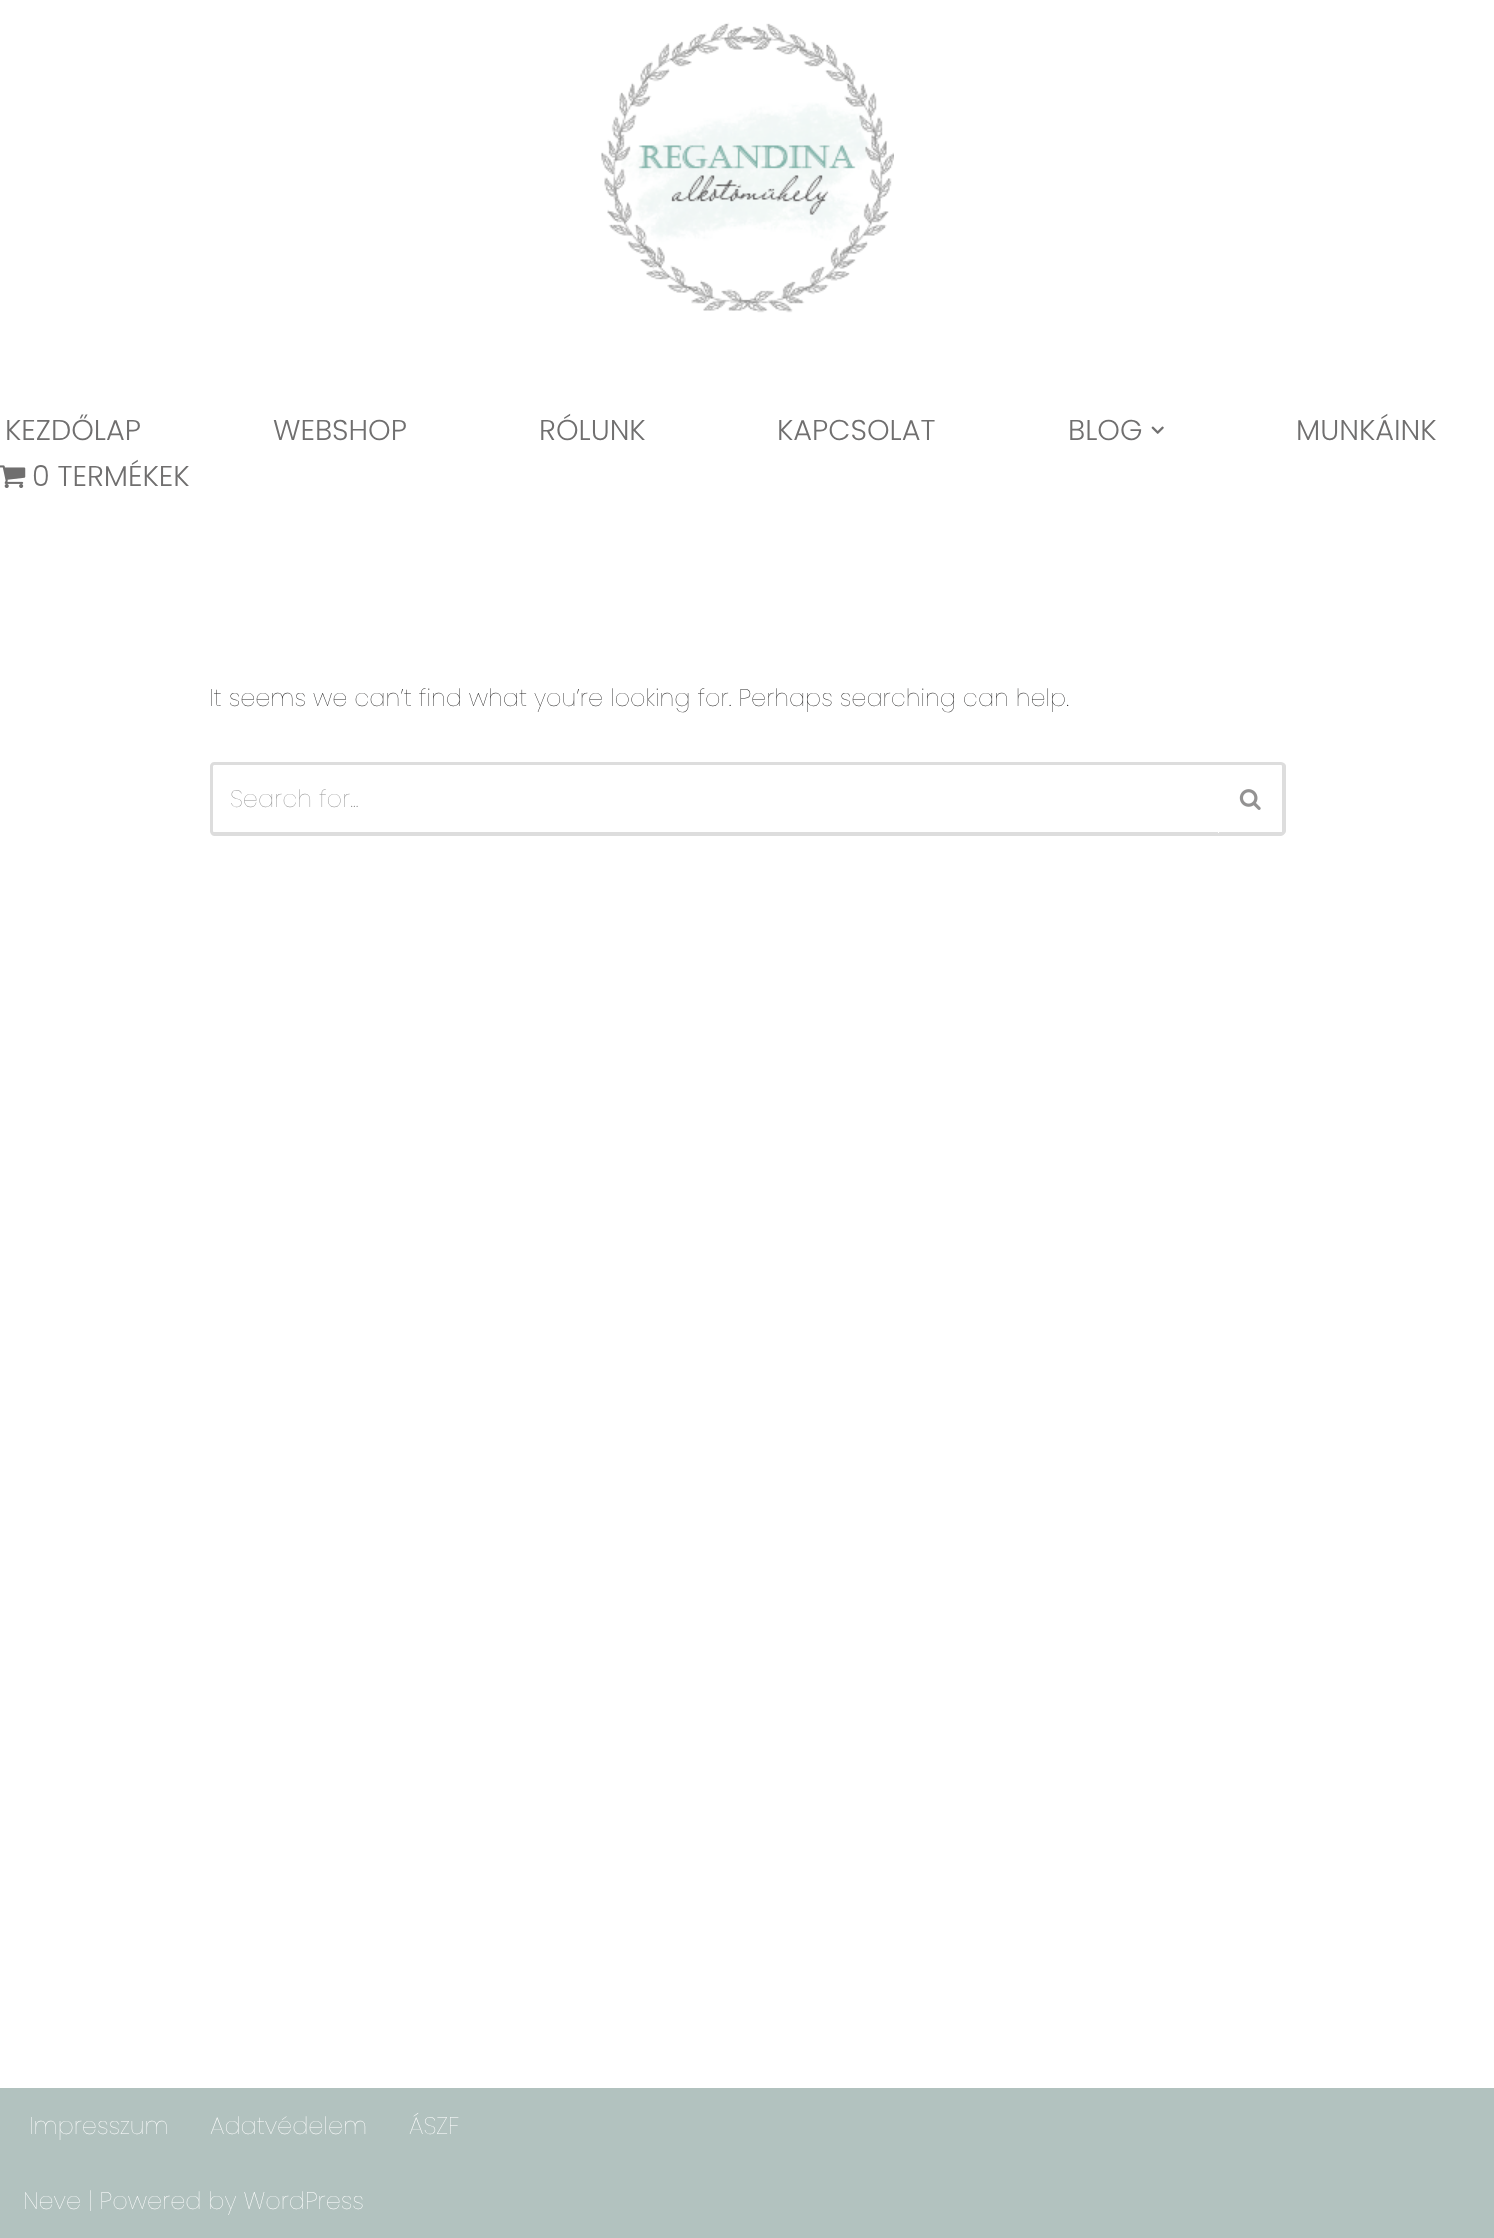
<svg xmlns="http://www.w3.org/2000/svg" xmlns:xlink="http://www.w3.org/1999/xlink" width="1494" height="2238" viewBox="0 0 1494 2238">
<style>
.cls-1{font:300 28.75px Poppins;fill:#706f6f}
.cls-2{font:200 24px Poppins;fill:#272626}
.cls-3{font:200 24px Poppins;fill:#939393}
.cls-4{font:200 24px Poppins;fill:#ffffff}
</style>
<rect width="100%" height="100%" fill="#ffffff"/>
<image xlink:href="image0.png" x="601" y="22" width="293" height="291"/>
<image xlink:href="image1.png" x="1151" y="426" width="13" height="8"/>
<image xlink:href="image2.png" x="0" y="465" width="26" height="23"/>
<path fill="#dddddd" fill-rule="evenodd" d="M214 762H1218V836H214C212 836 210 833 210 831V766C210 764 212 762 214 762ZM214 765H1218V832H214C214 832 213 832 213 831V766C213 766 214 765 214 765Z"/>
<path fill="#dddddd" fill-rule="evenodd" d="M1218 762H1281C1283 762 1286 764 1286 766V831C1286 833 1283 836 1281 836H1218ZM1218 765H1281C1282 765 1282 766 1282 766V831C1282 832 1282 832 1281 832H1218Z"/>
<image xlink:href="image3.png" x="1239" y="789" width="22" height="21"/>
<rect fill="#ffffff" x="1218" y="832" width="1" height="1"/>
<rect fill="#b2c2bf" x="0" y="2088" width="1494" height="150"/>
<text class="cls-1" x="5" y="440">KEZDŐLAP</text>
<text class="cls-1" x="273" y="440">WEBSHOP</text>
<text class="cls-1" x="539" y="440">RÓLUNK</text>
<text class="cls-1" x="777" y="440">KAPCSOLAT</text>
<text class="cls-1" x="1068" y="440">BLOG</text>
<text class="cls-1" x="1296" y="440">MUNKÁINK</text>
<text class="cls-1" x="32" y="486">0 TERMÉKEK</text>
<text class="cls-2" x="209" y="706">It seems we can’t find what you’re looking for. Perhaps searching can help.</text>
<text class="cls-3" x="230" y="807">Search for...</text>
<text class="cls-4" x="29" y="2134">Impresszum</text>
<text class="cls-4" x="210" y="2134">Adatvédelem</text>
<text class="cls-4" x="409" y="2134">ÁSZF</text>
<text class="cls-4" x="23" y="2209">Neve | Powered by WordPress</text>
</svg>
